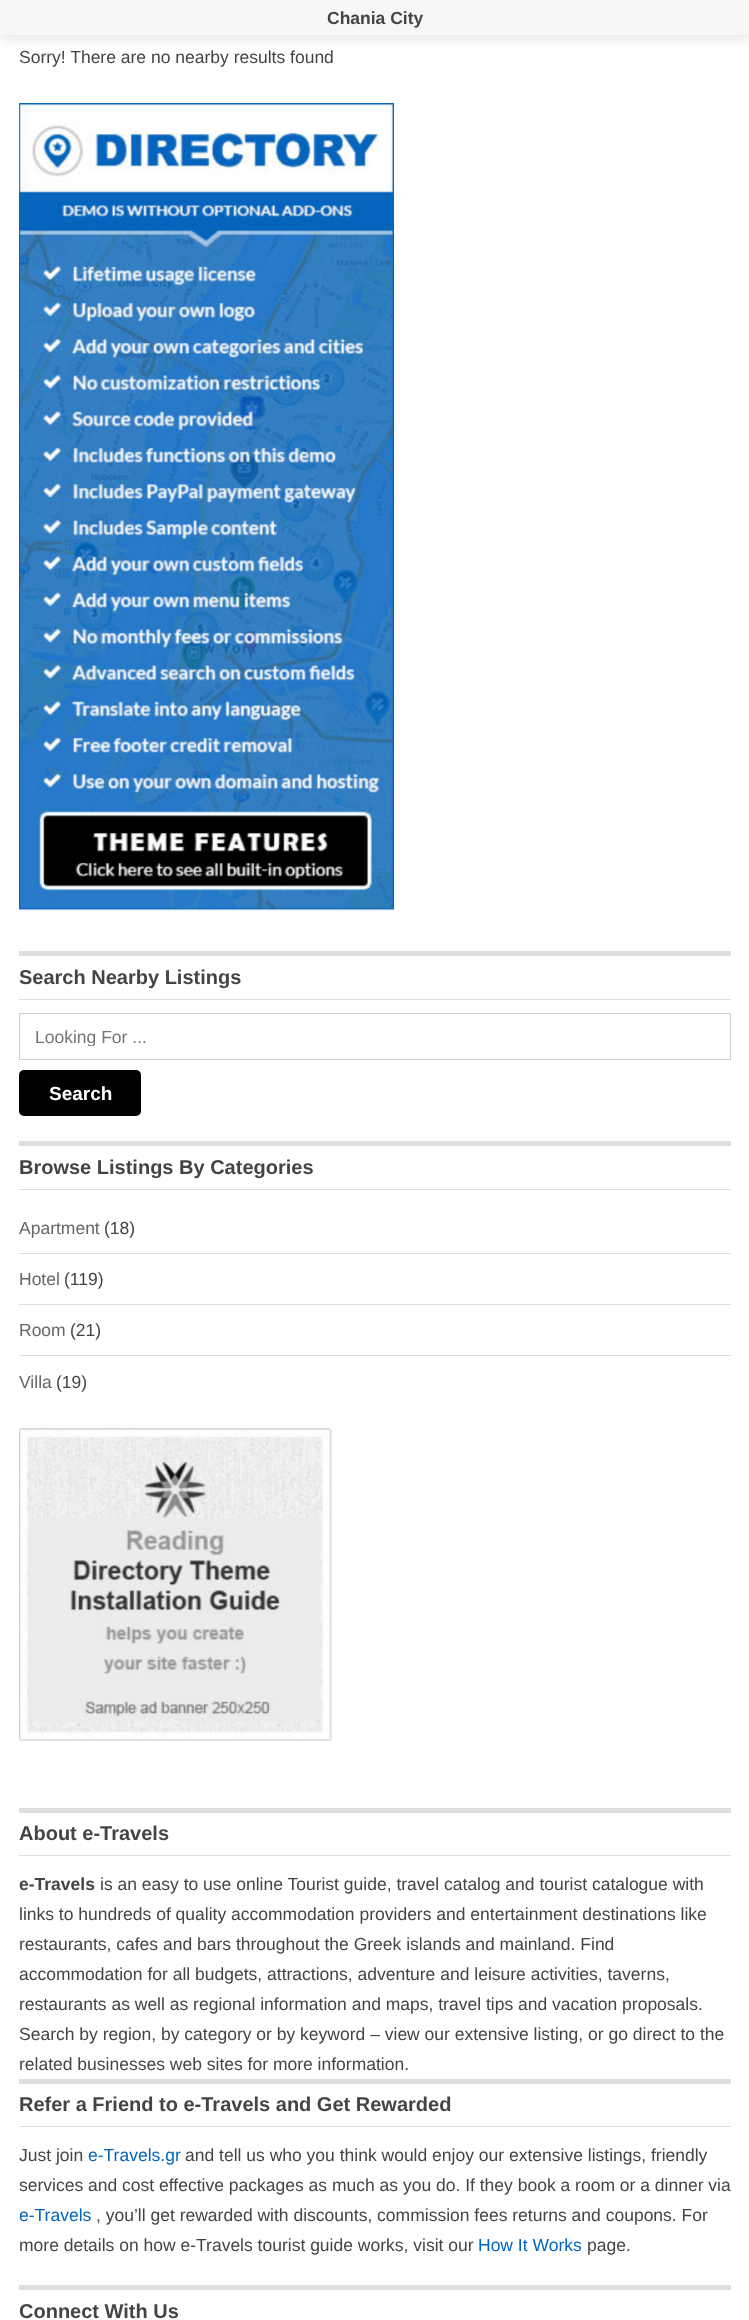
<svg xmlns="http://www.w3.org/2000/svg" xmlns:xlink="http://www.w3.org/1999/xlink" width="749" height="2320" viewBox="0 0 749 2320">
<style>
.cls-1{font:bold 17.5px Liberation Sans;fill:#444444}
.cls-2{font:17.5px Liberation Sans;fill:#444444}
.cls-3{font:bold 20px Liberation Sans;fill:#444444}
.cls-4{font:17.5px Liberation Sans;fill:#757575}
.cls-5{font:bold 19px Liberation Sans;fill:#ffffff}
.cls-6{font:17.5px Liberation Sans;fill:#666666}
.cls-7{font:17.5px Liberation Sans;fill:#0165bd}
</style>
<defs>
<clipPath id="clip1"><rect x="35" y="1026" width="680" height="20"/></clipPath>
</defs>
<rect width="100%" height="100%" fill="#ffffff"/>
<rect fill="#000000" fill-opacity="0.1" filter="blur(6px)" x="0" y="4" width="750" height="35"/>
<rect fill="#f7f7f7" x="0" y="0" width="749" height="35"/>
<image xlink:href="image0.png" x="19" y="103" width="375" height="808"/>
<rect fill="#dedede" x="19" y="951" width="712" height="5"/>
<rect fill="#dedede" x="19" y="999" width="712" height="1"/>
<rect fill="none" stroke="#cccccc" x="19.5" y="1013.5" width="711" height="46"/>
<rect fill="#000000" x="19" y="1070" width="122" height="46" rx="5"/>
<rect fill="#dedede" x="19" y="1141" width="712" height="5"/>
<rect fill="#dedede" x="19" y="1189" width="712" height="1"/>
<rect fill="#dedede" x="19" y="1253" width="712" height="1"/>
<rect fill="#dedede" x="19" y="1304" width="712" height="1"/>
<rect fill="#dedede" x="19" y="1355" width="712" height="1"/>
<image xlink:href="image1.png" x="19" y="1428" width="313" height="313"/>
<rect fill="#dedede" x="19" y="1808" width="712" height="5"/>
<rect fill="#dedede" x="19" y="1855" width="712" height="1"/>
<rect fill="#dedede" x="19" y="2079" width="712" height="5"/>
<rect fill="#dedede" x="19" y="2126" width="712" height="1"/>
<rect fill="#dedede" x="19" y="2285" width="712" height="5"/>
<text class="cls-1" x="327" y="24">Chania City</text>
<text class="cls-2" x="19" y="63">Sorry! There are no nearby results found</text>
<text class="cls-3" x="19" y="984">Search Nearby Listings</text>
<g clip-path="url(#clip1)">
<text class="cls-4" x="35" y="1043">Looking For ...</text>
</g>
<text class="cls-5" x="49" y="1100">Search</text>
<text class="cls-3" x="19" y="1174">Browse Listings By Categories</text>
<text class="cls-6" x="19" y="1234">Apartment</text>
<text class="cls-2" x="104" y="1234">(18)</text>
<text class="cls-6" x="19" y="1285">Hotel</text>
<text class="cls-2" x="64" y="1285">(119)</text>
<text class="cls-6" x="19" y="1336">Room</text>
<text class="cls-2" x="70" y="1336">(21)</text>
<text class="cls-6" x="19" y="1388">Villa</text>
<text class="cls-2" x="56" y="1388">(19)</text>
<text class="cls-3" x="19" y="1840">About e-Travels</text>
<text class="cls-1" x="19" y="1890">e-Travels</text>
<text class="cls-2" x="100" y="1890">is an easy to use online Tourist guide, travel catalog and tourist catalogue with</text>
<text class="cls-2"><tspan x="19" y="1920">links to hundreds of quality accommodation providers and entertainment destinations like</tspan><tspan x="19" y="1950">restaurants, cafes and bars throughout the Greek islands and mainland. Find</tspan><tspan x="19" y="1980">accommodation for all budgets, attractions, adventure and leisure activities, taverns,</tspan><tspan x="19" y="2010">restaurants as well as regional information and maps, travel tips and vacation proposals.</tspan><tspan x="19" y="2040">Search by region, by category or by keyword – view our extensive listing, or go direct to the</tspan><tspan x="19" y="2070">related businesses web sites for more information.</tspan></text>
<text class="cls-3" x="19" y="2111">Refer a Friend to e-Travels and Get Rewarded</text>
<text class="cls-2" x="19" y="2161">Just join</text>
<text class="cls-7" x="88" y="2161">e-Travels.gr</text>
<text class="cls-2" x="185" y="2161">and tell us who you think would enjoy our extensive listings, friendly</text>
<text class="cls-2" x="19" y="2191">services and cost effective packages as much as you do. If they book a room or a dinner via</text>
<text class="cls-7" x="19" y="2221">e-Travels</text>
<text class="cls-2" x="96" y="2221">, you’ll get rewarded with discounts, commission fees returns and coupons. For</text>
<text class="cls-2" x="19" y="2251">more details on how e-Travels tourist guide works, visit our</text>
<text class="cls-7" x="478" y="2251">How It Works</text>
<text class="cls-2" x="587" y="2251">page.</text>
<text class="cls-3" x="19" y="2318">Connect With Us</text>
</svg>
